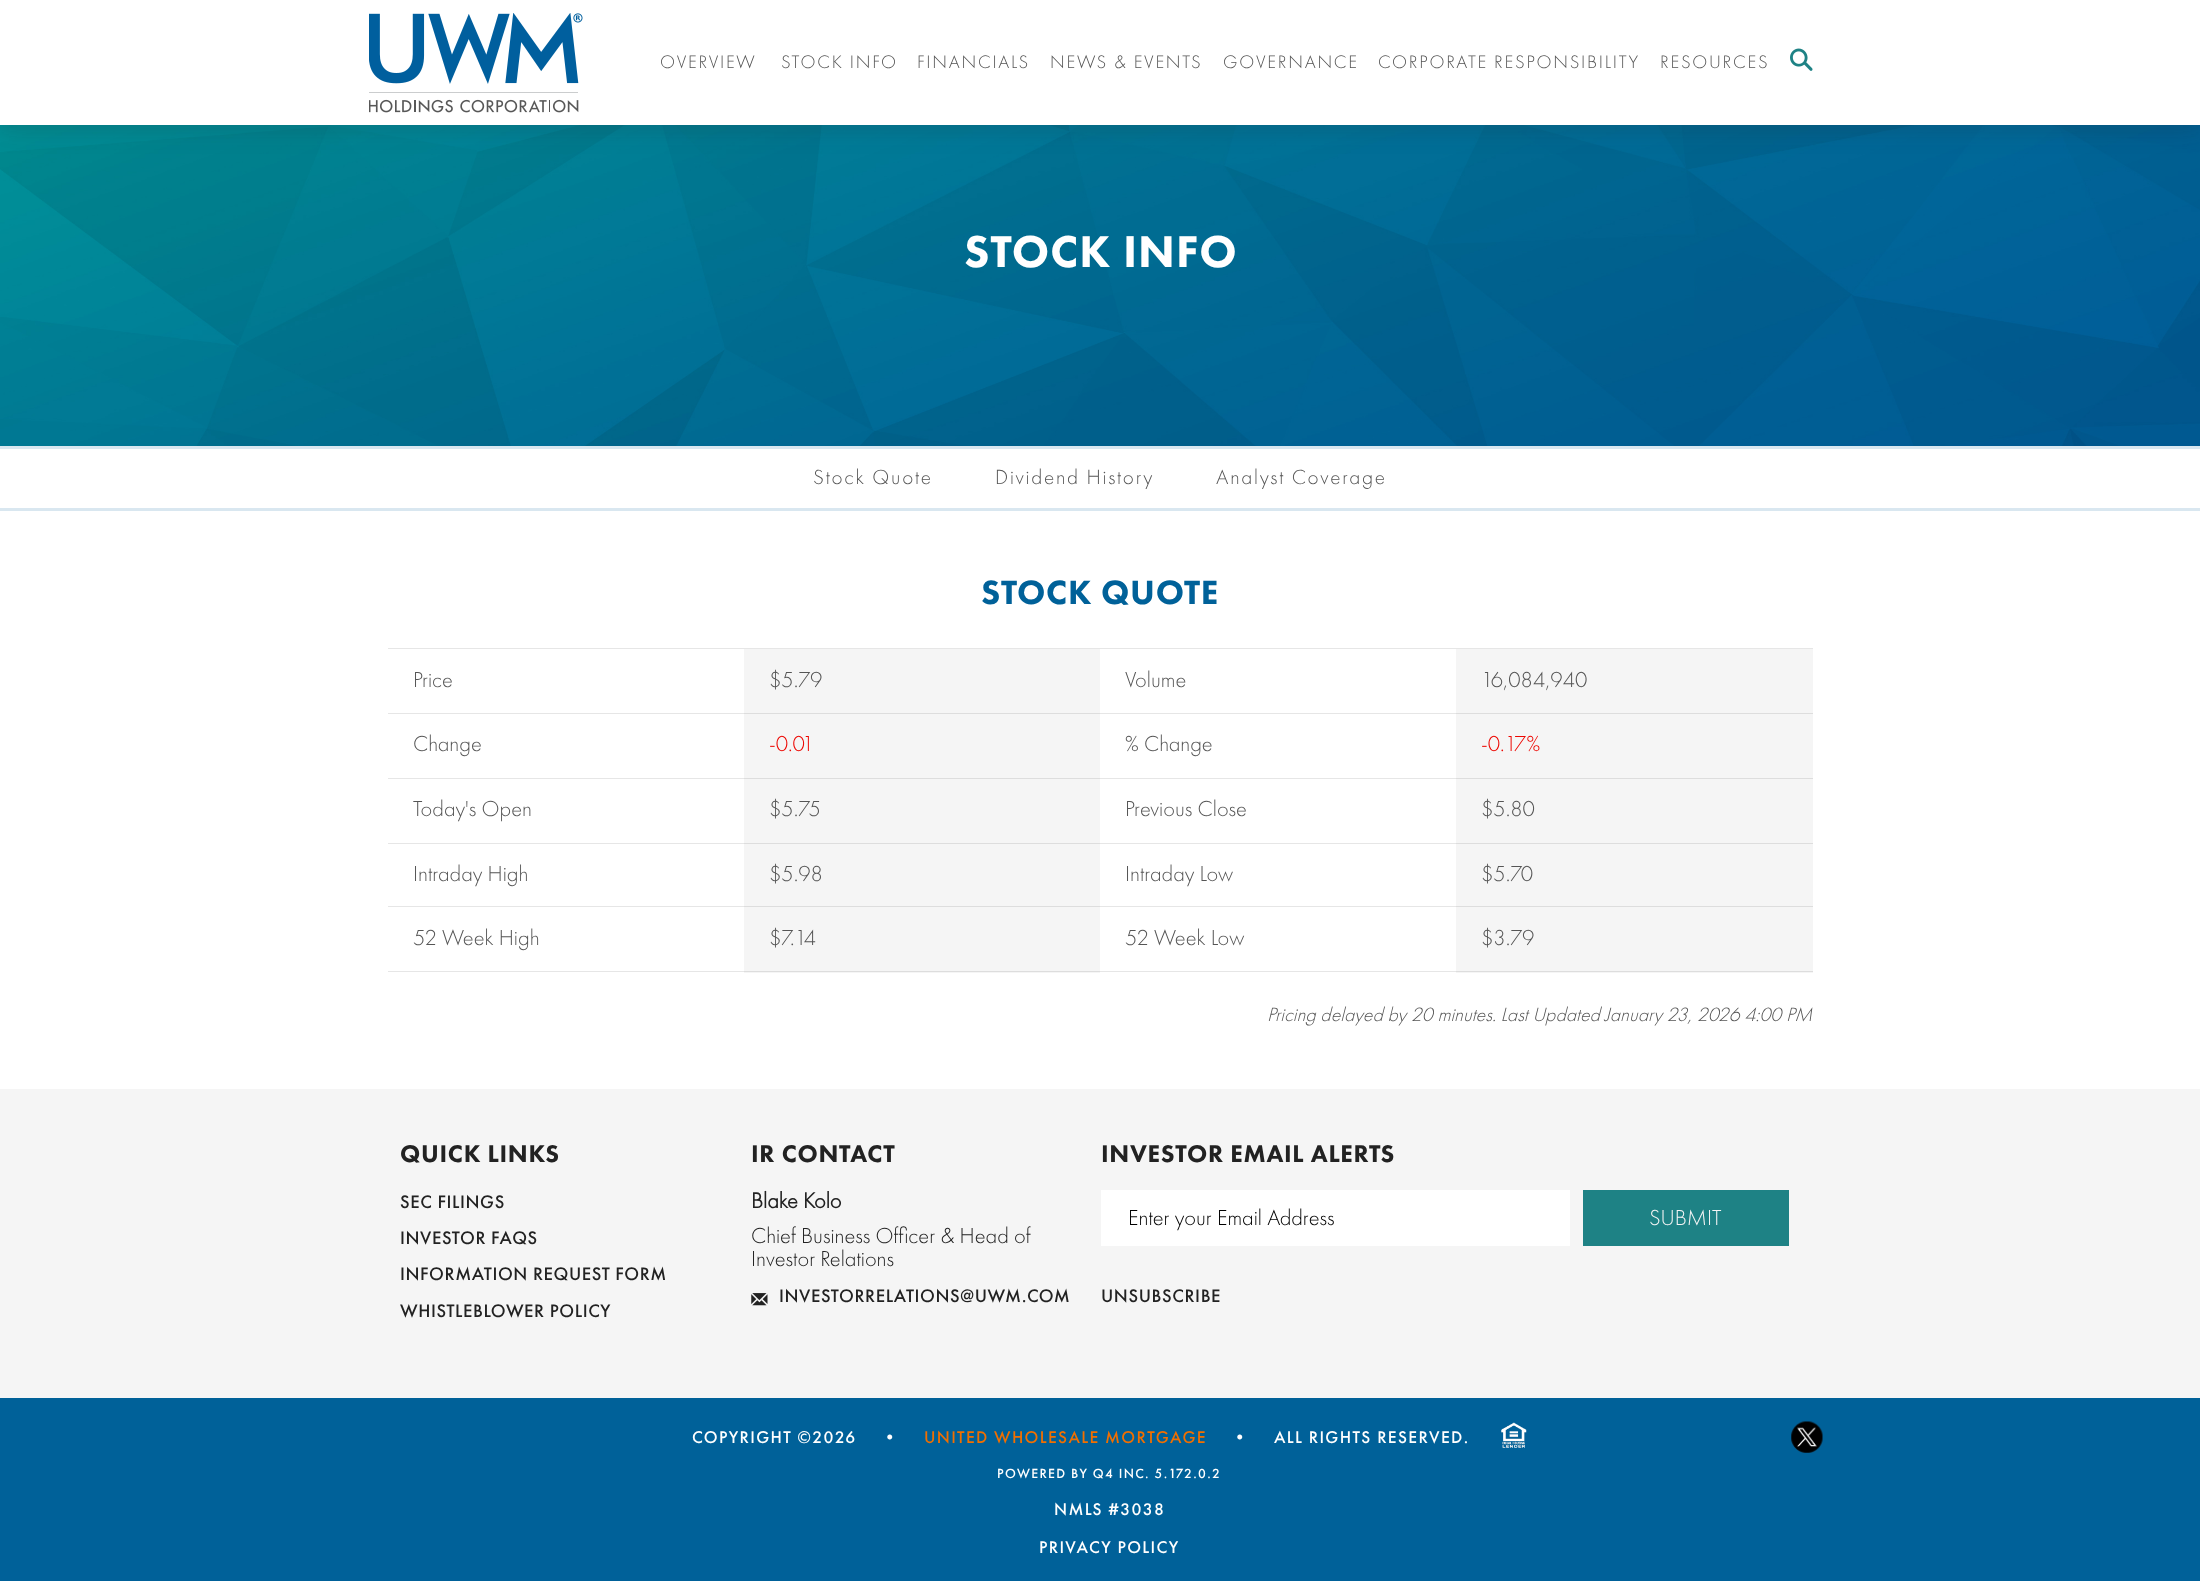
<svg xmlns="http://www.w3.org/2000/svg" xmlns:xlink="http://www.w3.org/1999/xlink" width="2200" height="1581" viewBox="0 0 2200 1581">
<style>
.cls-1{font:300 18.75px Futura PT;letter-spacing:1.75px;fill:#555555}
.cls-2{font:600 46.25px Futura PT;letter-spacing:1px;fill:#ffffff}
.cls-3{font:300 21.25px Futura PT;letter-spacing:1.75px;fill:#555555}
.cls-4{font:600 35px Futura PT;letter-spacing:0.7px;fill:#006199}
.cls-5{font:300 22.5px Futura PT;fill:#555555}
.cls-6{font:300 22.5px Futura PT;fill:#ed0600}
.cls-7{font:italic 300 20px Futura PT;fill:#555555}
.cls-8{font:600 25px Futura PT;letter-spacing:0.7px;fill:#222222}
.cls-9{font:18.75px Futura PT;letter-spacing:0.6px;fill:#222222}
.cls-10{font:bold 22.5px Futura PT;fill:#222222}
.cls-11{font:300 22.5px Futura PT;fill:#222222}
.cls-12{font:300 22.5px Futura PT;fill:#000000}
.cls-13{font:300 22.5px Futura PT;fill:#f5f5f5}
.cls-14{font:17.5px Futura PT;letter-spacing:1.35px;fill:#ffffff}
.cls-15{font:17.5px Futura PT;letter-spacing:1.35px;fill:#f16f00}
.cls-16{font:13.75px Futura PT;letter-spacing:1.35px;fill:#ffffff}
</style>
<rect width="100%" height="100%" fill="#ffffff"/>
<image xlink:href="image2.png" x="0" y="125" width="2200" height="321"/>
<rect fill="#222222" fill-opacity="0.2" filter="blur(12.5px)" x="0" y="3" width="2200" height="125"/>
<rect fill="#ffffff" x="0" y="0" width="2200" height="125"/>
<image xlink:href="image0.png" x="369" y="13" width="214" height="100"/>
<image xlink:href="image1.png" x="1790" y="48" width="23" height="23"/>
<rect fill="#d9e7f0" x="0" y="446" width="2200" height="3"/>
<rect fill="#d9e7f0" x="0" y="508" width="2200" height="3"/>
<rect fill="#e6e6e6" x="388" y="648" width="1425" height="1"/>
<rect fill="#e6e6e6" x="388" y="713" width="356" height="1"/>
<rect fill="#f5f5f5" x="744" y="649" width="356" height="64"/>
<rect fill="#dddddd" x="744" y="713" width="356" height="1"/>
<rect fill="#e6e6e6" x="1100" y="713" width="356" height="1"/>
<rect fill="#f5f5f5" x="1456" y="649" width="357" height="64"/>
<rect fill="#dddddd" x="1456" y="713" width="357" height="1"/>
<rect fill="#e6e6e6" x="388" y="778" width="356" height="1"/>
<rect fill="#f5f5f5" x="744" y="714" width="356" height="64"/>
<rect fill="#dddddd" x="744" y="778" width="356" height="1"/>
<rect fill="#e6e6e6" x="1100" y="778" width="356" height="1"/>
<rect fill="#f5f5f5" x="1456" y="714" width="357" height="64"/>
<rect fill="#dddddd" x="1456" y="778" width="357" height="1"/>
<rect fill="#e6e6e6" x="388" y="843" width="356" height="1"/>
<rect fill="#f5f5f5" x="744" y="779" width="356" height="64"/>
<rect fill="#dddddd" x="744" y="843" width="356" height="1"/>
<rect fill="#e6e6e6" x="1100" y="843" width="356" height="1"/>
<rect fill="#f5f5f5" x="1456" y="779" width="357" height="64"/>
<rect fill="#dddddd" x="1456" y="843" width="357" height="1"/>
<rect fill="#e6e6e6" x="388" y="906" width="356" height="1"/>
<rect fill="#f5f5f5" x="744" y="844" width="356" height="129"/>
<rect fill="#dddddd" x="744" y="906" width="356" height="1"/>
<rect fill="#e6e6e6" x="1100" y="906" width="356" height="1"/>
<rect fill="#f5f5f5" x="1456" y="844" width="357" height="129"/>
<rect fill="#dddddd" x="1456" y="906" width="357" height="1"/>
<rect fill="#e6e6e6" x="388" y="971" width="356" height="1"/>
<rect fill="#dddddd" x="744" y="971" width="356" height="1"/>
<rect fill="#e6e6e6" x="1100" y="971" width="356" height="1"/>
<rect fill="#dddddd" x="1456" y="971" width="357" height="1"/>
<rect fill="#f5f5f5" x="0" y="1089" width="2200" height="309"/>
<image xlink:href="image3.png" x="751" y="1293" width="17" height="13"/>
<rect fill="#ffffff" x="1101" y="1190" width="469" height="56"/>
<rect fill="#1e8285" x="1583" y="1190" width="206" height="56"/>
<rect fill="#006199" x="0" y="1398" width="2200" height="183"/>
<image xlink:href="image4.png" x="1501" y="1422" width="26" height="26"/>
<image xlink:href="image5.png" x="1791" y="1421" width="32" height="32"/>
<text class="cls-1" x="660" y="68">OVERVIEW</text>
<text class="cls-1" x="781" y="68">STOCK INFO</text>
<text class="cls-1" x="917" y="68">FINANCIALS</text>
<text class="cls-1" x="1050" y="68">NEWS &amp; EVENTS</text>
<text class="cls-1" x="1223" y="68">GOVERNANCE</text>
<text class="cls-1" x="1378" y="68">CORPORATE RESPONSIBILITY</text>
<text class="cls-1" x="1660" y="68">RESOURCES</text>
<text class="cls-2" x="964" y="267">STOCK INFO</text>
<text class="cls-3" x="813" y="484">Stock Quote</text>
<text class="cls-3" x="995" y="484">Dividend History</text>
<text class="cls-3" x="1216" y="484">Analyst Coverage</text>
<text class="cls-4" x="981" y="604">STOCK QUOTE</text>
<text class="cls-5" x="413" y="687">Price</text>
<text class="cls-5" x="769" y="687">$5.79</text>
<text class="cls-5" x="1125" y="687">Volume</text>
<text class="cls-5" x="1481" y="687">16,084,940</text>
<text class="cls-5" x="413" y="751">Change</text>
<text class="cls-6" x="769" y="751">-0.01</text>
<text class="cls-5" x="1125" y="751">% Change</text>
<text class="cls-6" x="1481" y="751">-0.17%</text>
<text class="cls-5" x="413" y="816">Today's Open</text>
<text class="cls-5" x="769" y="816">$5.75</text>
<text class="cls-5" x="1125" y="816">Previous Close</text>
<text class="cls-5" x="1481" y="816">$5.80</text>
<text class="cls-5" x="413" y="881">Intraday High</text>
<text class="cls-5" x="769" y="881">$5.98</text>
<text class="cls-5" x="1125" y="881">Intraday Low</text>
<text class="cls-5" x="1481" y="881">$5.70</text>
<text class="cls-5" x="413" y="945">52 Week High</text>
<text class="cls-5" x="769" y="945">$7.14</text>
<text class="cls-5" x="1125" y="945">52 Week Low</text>
<text class="cls-5" x="1481" y="945">$3.79</text>
<text class="cls-7" x="1267" y="1021">Pricing delayed by 20 minutes. Last Updated January 23, 2026 4:00 PM</text>
<text class="cls-8" x="400" y="1162">QUICK LINKS</text>
<text class="cls-9"><tspan x="400" y="1208">SEC FILINGS</tspan><tspan x="400" y="1244">INVESTOR FAQS</tspan><tspan x="400" y="1280">INFORMATION REQUEST FORM</tspan><tspan x="400" y="1317">WHISTLEBLOWER POLICY</tspan></text>
<text class="cls-8" x="751" y="1162">IR CONTACT</text>
<text class="cls-10" x="751" y="1208">Blake Kolo</text>
<text class="cls-11"><tspan x="751" y="1243">Chief Business Officer &amp; Head of</tspan><tspan x="751" y="1266">Investor Relations</tspan></text>
<text class="cls-9" x="779" y="1302">INVESTORRELATIONS@UWM.COM</text>
<text class="cls-8" x="1101" y="1162">INVESTOR EMAIL ALERTS</text>
<text class="cls-12" x="1128" y="1225">Enter your Email Address</text>
<text class="cls-13" x="1649" y="1225">SUBMIT</text>
<text class="cls-9" x="1101" y="1302">UNSUBSCRIBE</text>
<text class="cls-14" x="692" y="1443">COPYRIGHT ©2026</text>
<text class="cls-14" x="881" y="1443">•</text>
<text class="cls-15" x="924" y="1443">UNITED WHOLESALE MORTGAGE</text>
<text class="cls-14" x="1231" y="1443">•</text>
<text class="cls-14" x="1274" y="1443">ALL RIGHTS RESERVED.</text>
<text class="cls-16" x="997" y="1478">POWERED BY Q4 INC. 5.172.0.2</text>
<text class="cls-14" x="1054" y="1515">NMLS #3038</text>
<text class="cls-14" x="1039" y="1553">PRIVACY POLICY</text>
</svg>
